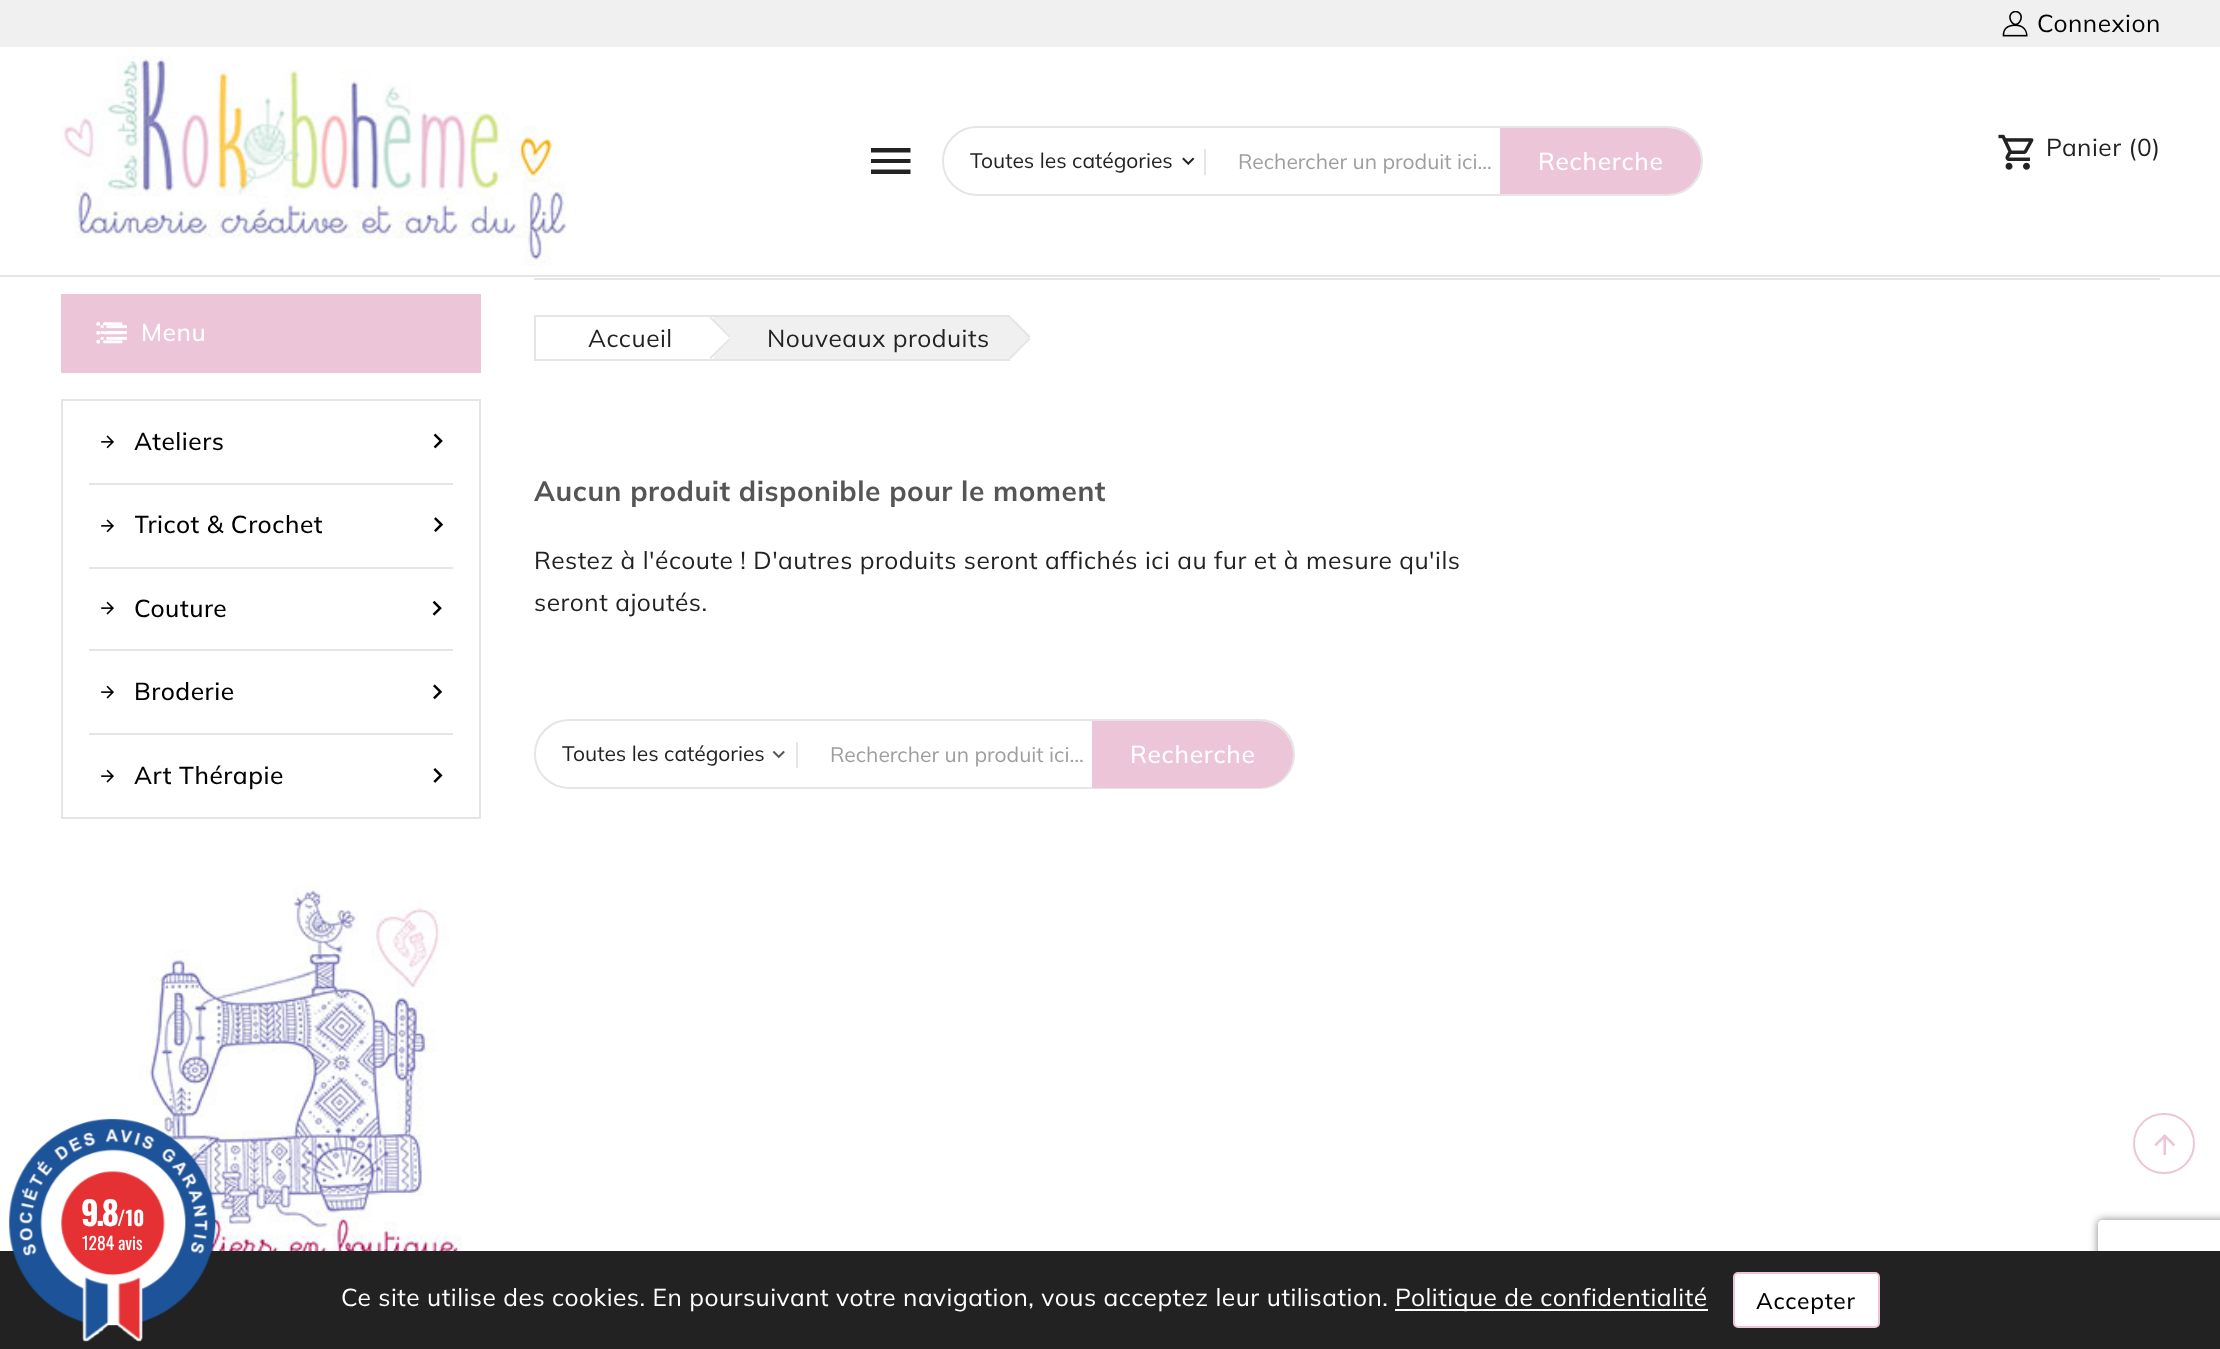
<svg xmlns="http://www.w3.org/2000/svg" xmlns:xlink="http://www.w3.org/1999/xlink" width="2220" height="1349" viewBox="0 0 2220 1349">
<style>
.cls-1{font:bold 33px Oswald;letter-spacing:-2.5px;fill:#ffffff}
.cls-2{font:bold 20px Oswald;fill:#ffffff}
.cls-3{font:17.5px Oswald;fill:#ffffff}
.cls-4{font:24.5px Mulish;letter-spacing:0.53px;fill:#000000}
.cls-5{font:21px Mulish;fill:#222222}
.cls-6{font:21px Mulish;fill:#9e9e9e}
.cls-7{font:500 24.5px Mulish;letter-spacing:0.75px;fill:#ffffff}
.cls-8{font:24.5px Mulish;letter-spacing:0.53px;fill:#222222}
.cls-9{font:500 24.5px Mulish;letter-spacing:0.53px;fill:#ffffff}
.cls-10{font:500 24.5px Mulish;letter-spacing:0.53px;fill:#000000}
.cls-11{font:bold 28px Mulish;letter-spacing:0.53px;fill:#555555}
.cls-12{font:24.5px Mulish;letter-spacing:0.53px;fill:#ffffff}
.cls-13{font:500 22.75px Mulish;letter-spacing:0.75px;fill:#000000}
</style>
<defs>
<clipPath id="clip1"><path d="M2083 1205H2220V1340H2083ZM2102 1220H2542C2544 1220 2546 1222 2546 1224V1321C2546 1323 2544 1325 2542 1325H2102C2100 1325 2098 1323 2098 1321V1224C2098 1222 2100 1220 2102 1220Z" clip-rule="evenodd"/></clipPath>
<clipPath id="clip2"><rect x="135" y="504" width="189" height="44"/></clipPath>
</defs>
<rect width="100%" height="100%" fill="#ffffff"/>
<image xlink:href="image14.png" x="88" y="884" width="374" height="367"/>
<g clip-path="url(#clip1)">
<rect fill="#808080" filter="blur(4.5px)" x="2098" y="1220" width="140" height="105" rx="4"/>
</g>
<rect fill="#222222" x="0" y="1251" width="2220" height="98"/>
<image xlink:href="image0.png" x="8" y="1118" width="208" height="224"/>
<rect fill="#f0f0f0" x="0" y="0" width="2220" height="47"/>
<image xlink:href="image1.png" x="2002" y="11" width="26" height="26"/>
<rect fill="#e5e5e5" x="0" y="275" width="2220" height="2"/>
<image xlink:href="image2.png" x="61" y="56" width="505" height="210"/>
<path fill="#222222" d="M871 174H910.5V169.5H871ZM871 163H910.5V159H871ZM871 148V152.5H910.5V148Z"/>
<rect fill="none" stroke="#e5e5e5" stroke-width="2" x="943" y="127" width="759" height="68" rx="34"/>
<rect fill="#e5e5e5" x="1204" y="149" width="2" height="26"/>
<image xlink:href="image3.png" x="1182" y="157" width="13" height="8"/>
<path fill="#edc5d8" d="M1500 128H1668C1686 128 1701 143 1701 161C1701 179 1686 194 1668 194H1500Z"/>
<image xlink:href="image4.png" x="1998" y="134" width="36" height="36"/>
<rect fill="#edc5d8" x="61" y="294" width="420" height="79"/>
<image xlink:href="image5.png" x="96" y="322" width="27" height="22"/>
<image xlink:href="image6.png" x="100" y="325" width="27" height="15"/>
<rect fill="none" stroke="#e5e5e5" stroke-width="2" x="62" y="400" width="418" height="418"/>
<image xlink:href="image7.png" x="101" y="435" width="13" height="14"/>
<image xlink:href="image8.png" x="433" y="433" width="10" height="16"/>
<rect fill="#e5e5e5" x="89" y="483" width="364" height="2"/>
<image xlink:href="image7.png" x="101" y="519" width="13" height="14"/>
<image xlink:href="image9.png" x="434" y="517" width="10" height="15"/>
<rect fill="#e5e5e5" x="89" y="567" width="364" height="2"/>
<image xlink:href="image10.png" x="101" y="601" width="13" height="14"/>
<image xlink:href="image11.png" x="432" y="600" width="10" height="16"/>
<rect fill="#e5e5e5" x="89" y="649" width="364" height="2"/>
<image xlink:href="image10.png" x="101" y="685" width="13" height="14"/>
<image xlink:href="image12.png" x="433" y="684" width="10" height="16"/>
<rect fill="#e5e5e5" x="89" y="733" width="364" height="2"/>
<image xlink:href="image10.png" x="101" y="769" width="13" height="14"/>
<image xlink:href="image13.png" x="433" y="768" width="10" height="15"/>
<rect fill="#e5e5e5" x="534" y="278" width="1626" height="2"/>
<rect fill="none" stroke="#e5e5e5" stroke-width="2" x="535" y="316" width="474" height="44"/>
<rect fill="#f0f0f0" x="714" y="317" width="294" height="42"/>
<path fill="#ffffff" d="M712 318L729 335C731 337 731 339 729 340L712 358C711 359 709 359 707 358L690 340C688 339 688 337 690 335L707 318C709 317 711 317 712 318Z"/>
<path fill="#e5e5e5" d="M711 316.5L730.5 336.5L729.5 338L709.5 318ZM729.5 338L730.5 339L711 359L709.5 357.5Z"/>
<rect fill="none" stroke="#e5e5e5" stroke-width="2" x="535" y="720" width="759" height="68" rx="34"/>
<rect fill="#e5e5e5" x="796" y="742" width="2" height="26"/>
<image xlink:href="image15.png" x="772" y="750" width="13" height="9"/>
<path fill="#edc5d8" d="M1092 721H1259.5C1278 721 1293 736 1293 754.5C1293 773 1278 788 1259.5 788H1092Z"/>
<rect fill="none" stroke="#edc5d8" stroke-width="2" x="2134" y="1114" width="60" height="59" rx="29.5"/>
<image xlink:href="image16.png" x="2154" y="1134" width="22" height="21"/>
<rect fill="#ffffff" x="1395" y="1309" width="313" height="2"/>
<rect fill="#ffffff" stroke="#edc5d8" stroke-width="2" x="1734" y="1273" width="145" height="54" rx="4"/>
<text class="cls-1" x="81" y="1226">9.8</text>
<text class="cls-2" x="117" y="1226">/10</text>
<text class="cls-3" x="82" y="1250">1284 avis</text>
<text class="cls-4" x="2037" y="32">Connexion</text>
<text class="cls-5" x="970" y="168">Toutes les catégories</text>
<text class="cls-6" x="1238" y="169">Rechercher un produit ici...</text>
<text class="cls-7" x="1538" y="170">Recherche</text>
<text class="cls-8" x="2046" y="156">Panier (0)</text>
<text class="cls-9" x="141" y="341">Menu</text>
<text class="cls-10" x="134" y="450">Ateliers</text>
<g clip-path="url(#clip2)">
<text class="cls-10" x="134" y="533">Tricot &amp; Crochet</text>
</g>
<text class="cls-10" x="134" y="617">Couture</text>
<text class="cls-10" x="134" y="700">Broderie</text>
<text class="cls-10" x="134" y="784">Art Thérapie</text>
<text class="cls-8" x="588" y="347">Accueil</text>
<text class="cls-8" x="767" y="347">Nouveaux produits</text>
<path fill="#f0f0f0" d="M1012 318L1029 335C1030 337 1030 339 1029 340L1012 358C1010 359 1008 359 1007 358L989 340C988 339 988 337 989 335L1007 318C1008 317 1010 317 1012 318Z"/>
<path fill="#e5e5e5" d="M1010.5 316.5L1030.5 336.5L1029 338L1009.5 318ZM1029 338L1030.5 339L1010.5 359L1009.5 357.5Z"/>
<text class="cls-11" x="534" y="501">Aucun produit disponible pour le moment</text>
<text class="cls-8"><tspan x="534" y="569">Restez à l'écoute ! D'autres produits seront affichés ici au fur et à mesure qu'ils</tspan><tspan x="534" y="611">seront ajoutés.</tspan></text>
<text class="cls-5" x="562" y="761">Toutes les catégories</text>
<text class="cls-6" x="830" y="762">Rechercher un produit ici...</text>
<text class="cls-7" x="1130" y="763">Recherche</text>
<text class="cls-12" x="341" y="1306">Ce site utilise des cookies. En poursuivant votre navigation, vous acceptez leur utilisation.</text>
<text class="cls-12" x="1395" y="1306">Politique de confidentialité</text>
<text class="cls-13" x="1756" y="1309">Accepter</text>
</svg>
